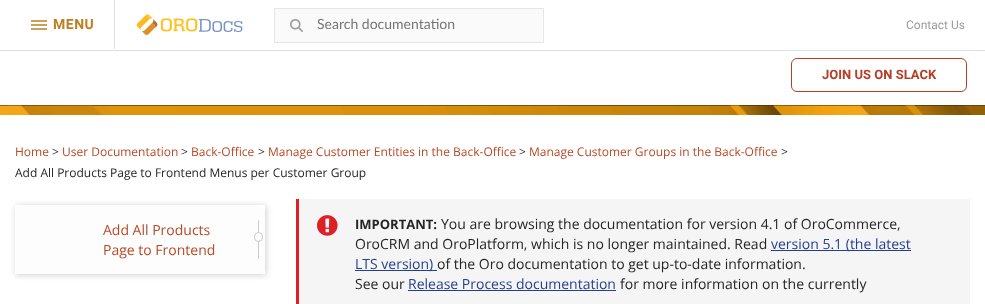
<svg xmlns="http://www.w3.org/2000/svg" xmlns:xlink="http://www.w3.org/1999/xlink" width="985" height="304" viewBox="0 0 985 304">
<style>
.cls-1{font:bold 14px Roboto;letter-spacing:0.5px;fill:#be7f22}
.cls-2{font:14px Lato;fill:#757575}
.cls-3{font:12px Roboto;fill:#9b9b9b}
.cls-4{font:bold 13px Roboto;fill:#b33f27}
.cls-5{font:12px Open Sans;fill:#b84926}
.cls-6{font:12px Open Sans;fill:#252525}
.cls-7{font:14px Open Sans;fill:#b84926}
.cls-8{font:14px Open Sans;fill:#252525}
.cls-9{font:14px Open Sans;fill:#243f90}
.cls-10{font:bold 13px Open Sans;fill:#252525}
</style>
<rect width="100%" height="100%" fill="#ffffff"/>
<rect fill="#ce9f59" x="31" y="20" width="16" height="2"/>
<rect fill="#ce9f59" x="31" y="24" width="16" height="2"/>
<rect fill="#ce9f59" x="31" y="28" width="16" height="2"/>
<rect fill="#e0e0e0" x="114" y="0" width="1" height="49"/>
<image xlink:href="image0.png" x="136" y="14" width="62" height="21"/>
<image xlink:href="image1.png" x="199" y="19" width="44" height="13"/>
<rect fill="#fafafa" stroke="#e8e6e6" x="274.5" y="8.5" width="269" height="34"/>
<image xlink:href="image2.png" x="290" y="19" width="13" height="13"/>
<rect fill="#e0e0e0" x="0" y="50" width="985" height="1"/>
<rect fill="none" stroke="#b33f27" x="791.5" y="58.5" width="175" height="33" rx="5.5"/>
<image xlink:href="image3.png" x="0" y="105" width="985" height="10"/>
<rect fill="#858585" fill-opacity="0.4" filter="blur(3px)" x="16" y="206" width="250" height="69"/>
<rect fill="#fdfdfd" x="15" y="205" width="250" height="69"/>
<rect fill="#c9c9c9" x="258" y="220" width="1" height="39" rx="0.5"/>
<rect fill="#fdfdfd" stroke="#c9c9c9" x="254.5" y="232.5" width="8" height="9" rx="4"/>
<rect fill="#f5f5f5" x="299" y="199" width="671" height="105"/>
<rect fill="#de1f26" x="296" y="199" width="3" height="105"/>
<rect fill="#243f90" x="771" y="250" width="140" height="1"/>
<rect fill="#243f90" x="355" y="270" width="82" height="1"/>
<image xlink:href="image4.png" x="317" y="215" width="21" height="21"/>
<rect fill="#243f90" x="408" y="290" width="208" height="1"/>
<text class="cls-1" x="53" y="29">MENU</text>
<text class="cls-2" x="317" y="29">Search documentation</text>
<text class="cls-3" x="906" y="29">Contact Us</text>
<text class="cls-4" x="822" y="79">JOIN US ON SLACK</text>
<text class="cls-5" x="15" y="156">Home</text>
<text class="cls-6" x="52" y="156">&gt;</text>
<text class="cls-5" x="62" y="156">User Documentation</text>
<text class="cls-6" x="181" y="156">&gt;</text>
<text class="cls-5" x="191" y="156">Back-Office</text>
<text class="cls-6" x="258" y="156">&gt;</text>
<text class="cls-5" x="268" y="156">Manage Customer Entities in the Back-Office</text>
<text class="cls-6" x="519" y="156">&gt;</text>
<text class="cls-5" x="529" y="156">Manage Customer Groups in the Back-Office</text>
<text class="cls-6" x="781" y="156">&gt;</text>
<text class="cls-6" x="15" y="177">Add All Products Page to Frontend Menus per Customer Group</text>
<text class="cls-7"><tspan x="103" y="235">Add All Products</tspan><tspan x="103" y="255">Page to Frontend</tspan></text>
<text class="cls-8" x="441" y="229">You are browsing the documentation for version 4.1 of OroCommerce,</text>
<text class="cls-8" x="355" y="249">OroCRM and OroPlatform, which is no longer maintained. Read</text>
<text class="cls-9" x="771" y="249">version 5.1 (the latest</text>
<text class="cls-9" x="355" y="269">LTS version)</text>
<text class="cls-8" x="437" y="269">of the Oro documentation to get up-to-date information.</text>
<text class="cls-10" x="355" y="229">IMPORTANT:</text>
<text class="cls-8" x="355" y="289">See our</text>
<text class="cls-9" x="408" y="289">Release Process documentation</text>
<text class="cls-8" x="620" y="289">for more information on the currently</text>
</svg>
